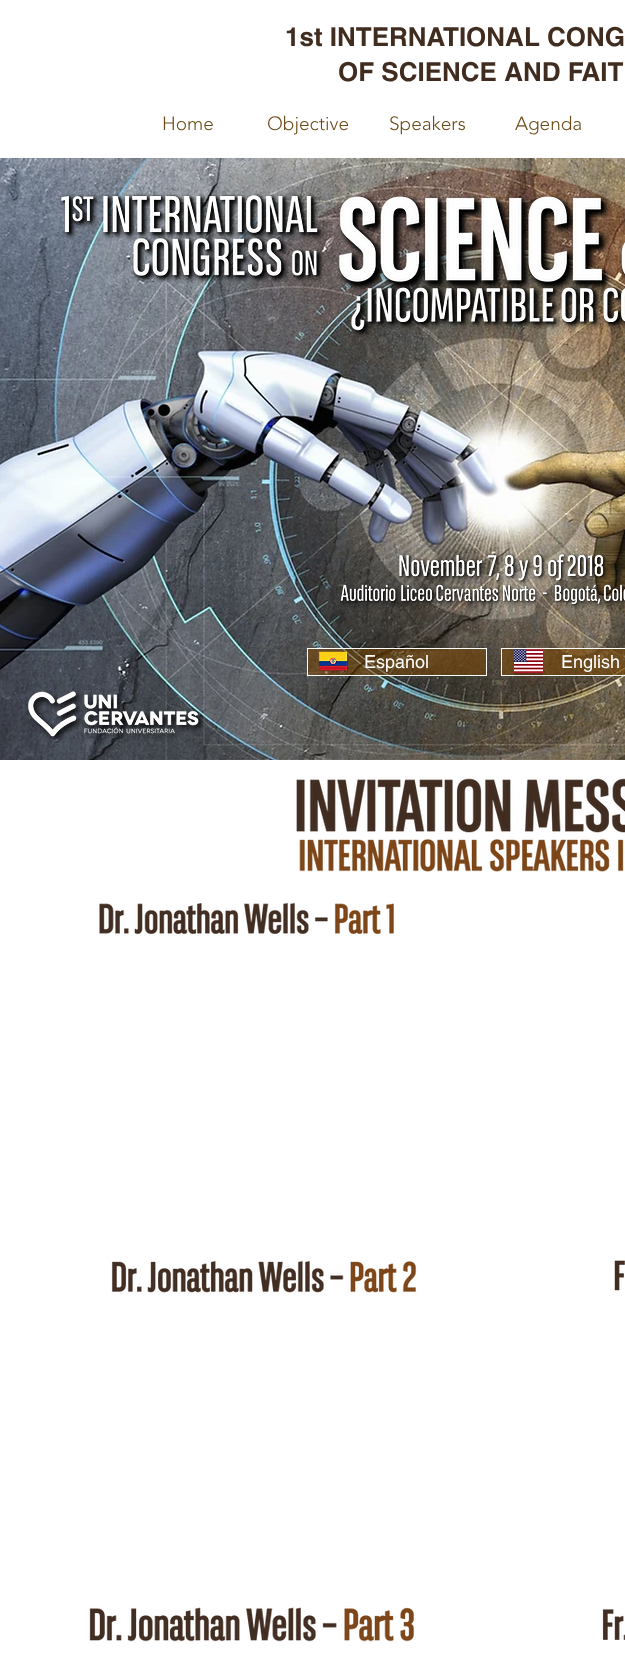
<svg xmlns="http://www.w3.org/2000/svg" xmlns:xlink="http://www.w3.org/1999/xlink" width="625" height="1668" viewBox="0 0 625 1668">
<style>
.cls-1{font:bold 26px helvetica;fill:#412c20}
.cls-2{font:300 19px 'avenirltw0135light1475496';fill:#6b4a18}
.cls-3{font:18px helvetica;fill:#ffffff}
</style>
<rect width="100%" height="100%" fill="#ffffff"/>
<image xlink:href="image0.png" x="0" y="158" width="625" height="602"/>
<image xlink:href="image1.png" x="60" y="193" width="565" height="144"/>
<image xlink:href="image2.png" x="340" y="553" width="285" height="58"/>
<rect fill="#7f4700" fill-opacity="0.52" stroke="#ffffff" x="307.5" y="648.5" width="179" height="27"/>
<image xlink:href="image3.png" x="319" y="651" width="30" height="22"/>
<rect fill="#7f4700" fill-opacity="0.52" stroke="#ffffff" x="501.5" y="648.5" width="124" height="27"/>
<image xlink:href="image4.png" x="514" y="649" width="29" height="27"/>
<image xlink:href="image5.png" x="27" y="690" width="178" height="53"/>
<image xlink:href="image6.png" x="296" y="777" width="329" height="95"/>
<image xlink:href="image7.png" x="97" y="902" width="297" height="34"/>
<image xlink:href="image8.png" x="111" y="1260" width="306" height="34"/>
<image xlink:href="image9.png" x="614" y="1260" width="11" height="31"/>
<image xlink:href="image10.png" x="89" y="1606" width="327" height="36"/>
<image xlink:href="image11.png" x="602" y="1609" width="23" height="31"/>
<text class="cls-1" x="285" y="46">1st INTERNATIONAL CONG</text>
<text class="cls-1" x="338" y="81">OF SCIENCE AND FAIT</text>
<text class="cls-2" x="162" y="130">Home</text>
<text class="cls-2" x="267" y="130">Objective</text>
<text class="cls-2" x="389" y="130">Speakers</text>
<text class="cls-2" x="515" y="130">Agenda</text>
<text class="cls-3" x="364" y="668">Español</text>
<text class="cls-3" x="561" y="668">English</text>
</svg>
